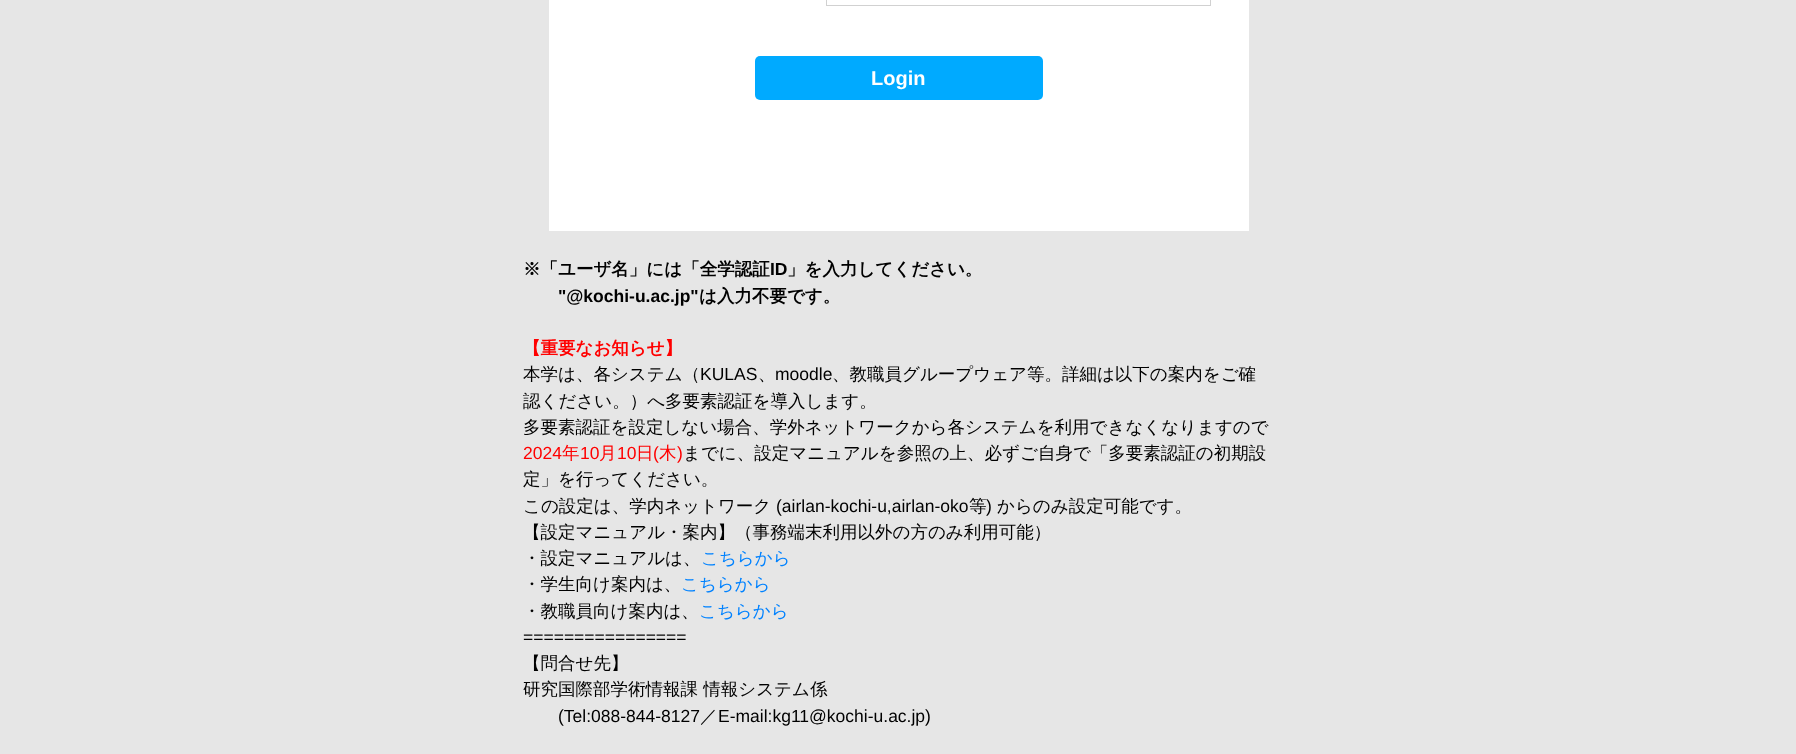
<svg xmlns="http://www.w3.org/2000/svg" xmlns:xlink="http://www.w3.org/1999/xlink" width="1796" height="754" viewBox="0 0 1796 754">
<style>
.cls-1{font:bold 20px Liberation Sans;fill:#ffffff}
.cls-2{font:bold 17.5px WenQuanYi Zen Hei;fill:#000000}
.cls-3{font:bold 17.5px Liberation Sans;fill:#000000}
.cls-4{font:bold 17.5px WenQuanYi Zen Hei;fill:#ff0000}
.cls-5{font:500 17.5px WenQuanYi Zen Hei;fill:#000000}
.cls-6{font:17.5px Liberation Sans;fill:#000000}
.cls-7{font:17.5px Liberation Sans;fill:#ff0000}
.cls-8{font:500 17.5px WenQuanYi Zen Hei;fill:#ff0000}
.cls-9{font:500 17.5px WenQuanYi Zen Hei;fill:#0082ff}
</style>
<rect width="100%" height="100%" fill="#e6e6e6"/>
<rect fill="#ffffff" x="549" y="0" width="700" height="231"/>
<rect fill="none" stroke="#d1d1d1" x="826.5" y="-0.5" width="384" height="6"/>
<rect fill="#00aaff" x="755" y="56" width="288" height="44" rx="5"/>
<text class="cls-1" x="871" y="85">Login</text>
<text class="cls-2" x="523" y="275">※「ユーザ名」には「全学認証</text>
<text class="cls-3" x="770" y="275">ID</text>
<text class="cls-2" x="787" y="275">」を入力してください。</text>
<text class="cls-3" x="558" y="302">"@kochi-u.ac.jp"</text>
<text class="cls-2" x="699" y="302">は入力不要です。</text>
<text class="cls-4" x="523" y="354">【重要なお知らせ】</text>
<text class="cls-5" x="523" y="380">本学は、各システム（</text>
<text class="cls-6" x="700" y="380">KULAS</text>
<text class="cls-5" x="758" y="380">、</text>
<text class="cls-6" x="775" y="380">moodle</text>
<text class="cls-5" x="832" y="380">、教職員グループウェア等。詳細は以下の案内をご確</text>
<text class="cls-5"><tspan x="523" y="407">認ください。）へ多要素認証を導入します。</tspan><tspan x="523" y="433">多要素認証を設定しない場合、学外ネットワークから各システムを利用できなくなりますので</tspan></text>
<text class="cls-7" x="523" y="459">2024</text>
<text class="cls-8" x="562" y="459">年</text>
<text class="cls-7" x="580" y="459">10</text>
<text class="cls-8" x="599" y="459">月</text>
<text class="cls-7" x="617" y="459">10</text>
<text class="cls-8" x="636" y="459">日</text>
<text class="cls-7" x="653" y="459">(</text>
<text class="cls-8" x="659" y="459">木</text>
<text class="cls-7" x="677" y="459">)</text>
<text class="cls-5" x="683" y="459">までに、設定マニュアルを参照の上、必ずご自身で「多要素認証の初期設</text>
<text class="cls-5"><tspan x="523" y="485">定」を行ってください。</tspan><tspan x="523" y="512">この設定は、学内ネットワーク</tspan></text>
<text class="cls-6" x="776" y="512">(airlan-kochi-u,airlan-oko</text>
<text class="cls-5" x="969" y="512">等</text>
<text class="cls-6" x="986" y="512">)</text>
<text class="cls-5" x="997" y="512">からのみ設定可能です。</text>
<text class="cls-5"><tspan x="523" y="538">【設定マニュアル・案内】（事務端末利用以外の方のみ利用可能）</tspan><tspan x="523" y="564">・設定マニュアルは、</tspan></text>
<text class="cls-9" x="701" y="564">こちらから</text>
<text class="cls-5" x="523" y="590">・学生向け案内は、</text>
<text class="cls-9" x="681" y="590">こちらから</text>
<text class="cls-5" x="523" y="617">・教職員向け案内は、</text>
<text class="cls-9" x="699" y="617">こちらから</text>
<text class="cls-6" x="523" y="643">================</text>
<text class="cls-5"><tspan x="523" y="669">【問合せ先】</tspan><tspan x="523" y="695">研究国際部学術情報課 情報システム係</tspan></text>
<text class="cls-6" x="558" y="722">(Tel:088-844-8127</text>
<text class="cls-5" x="700" y="722">／</text>
<text class="cls-6" x="718" y="722">E-mail:kg11@kochi-u.ac.jp)</text>
</svg>
